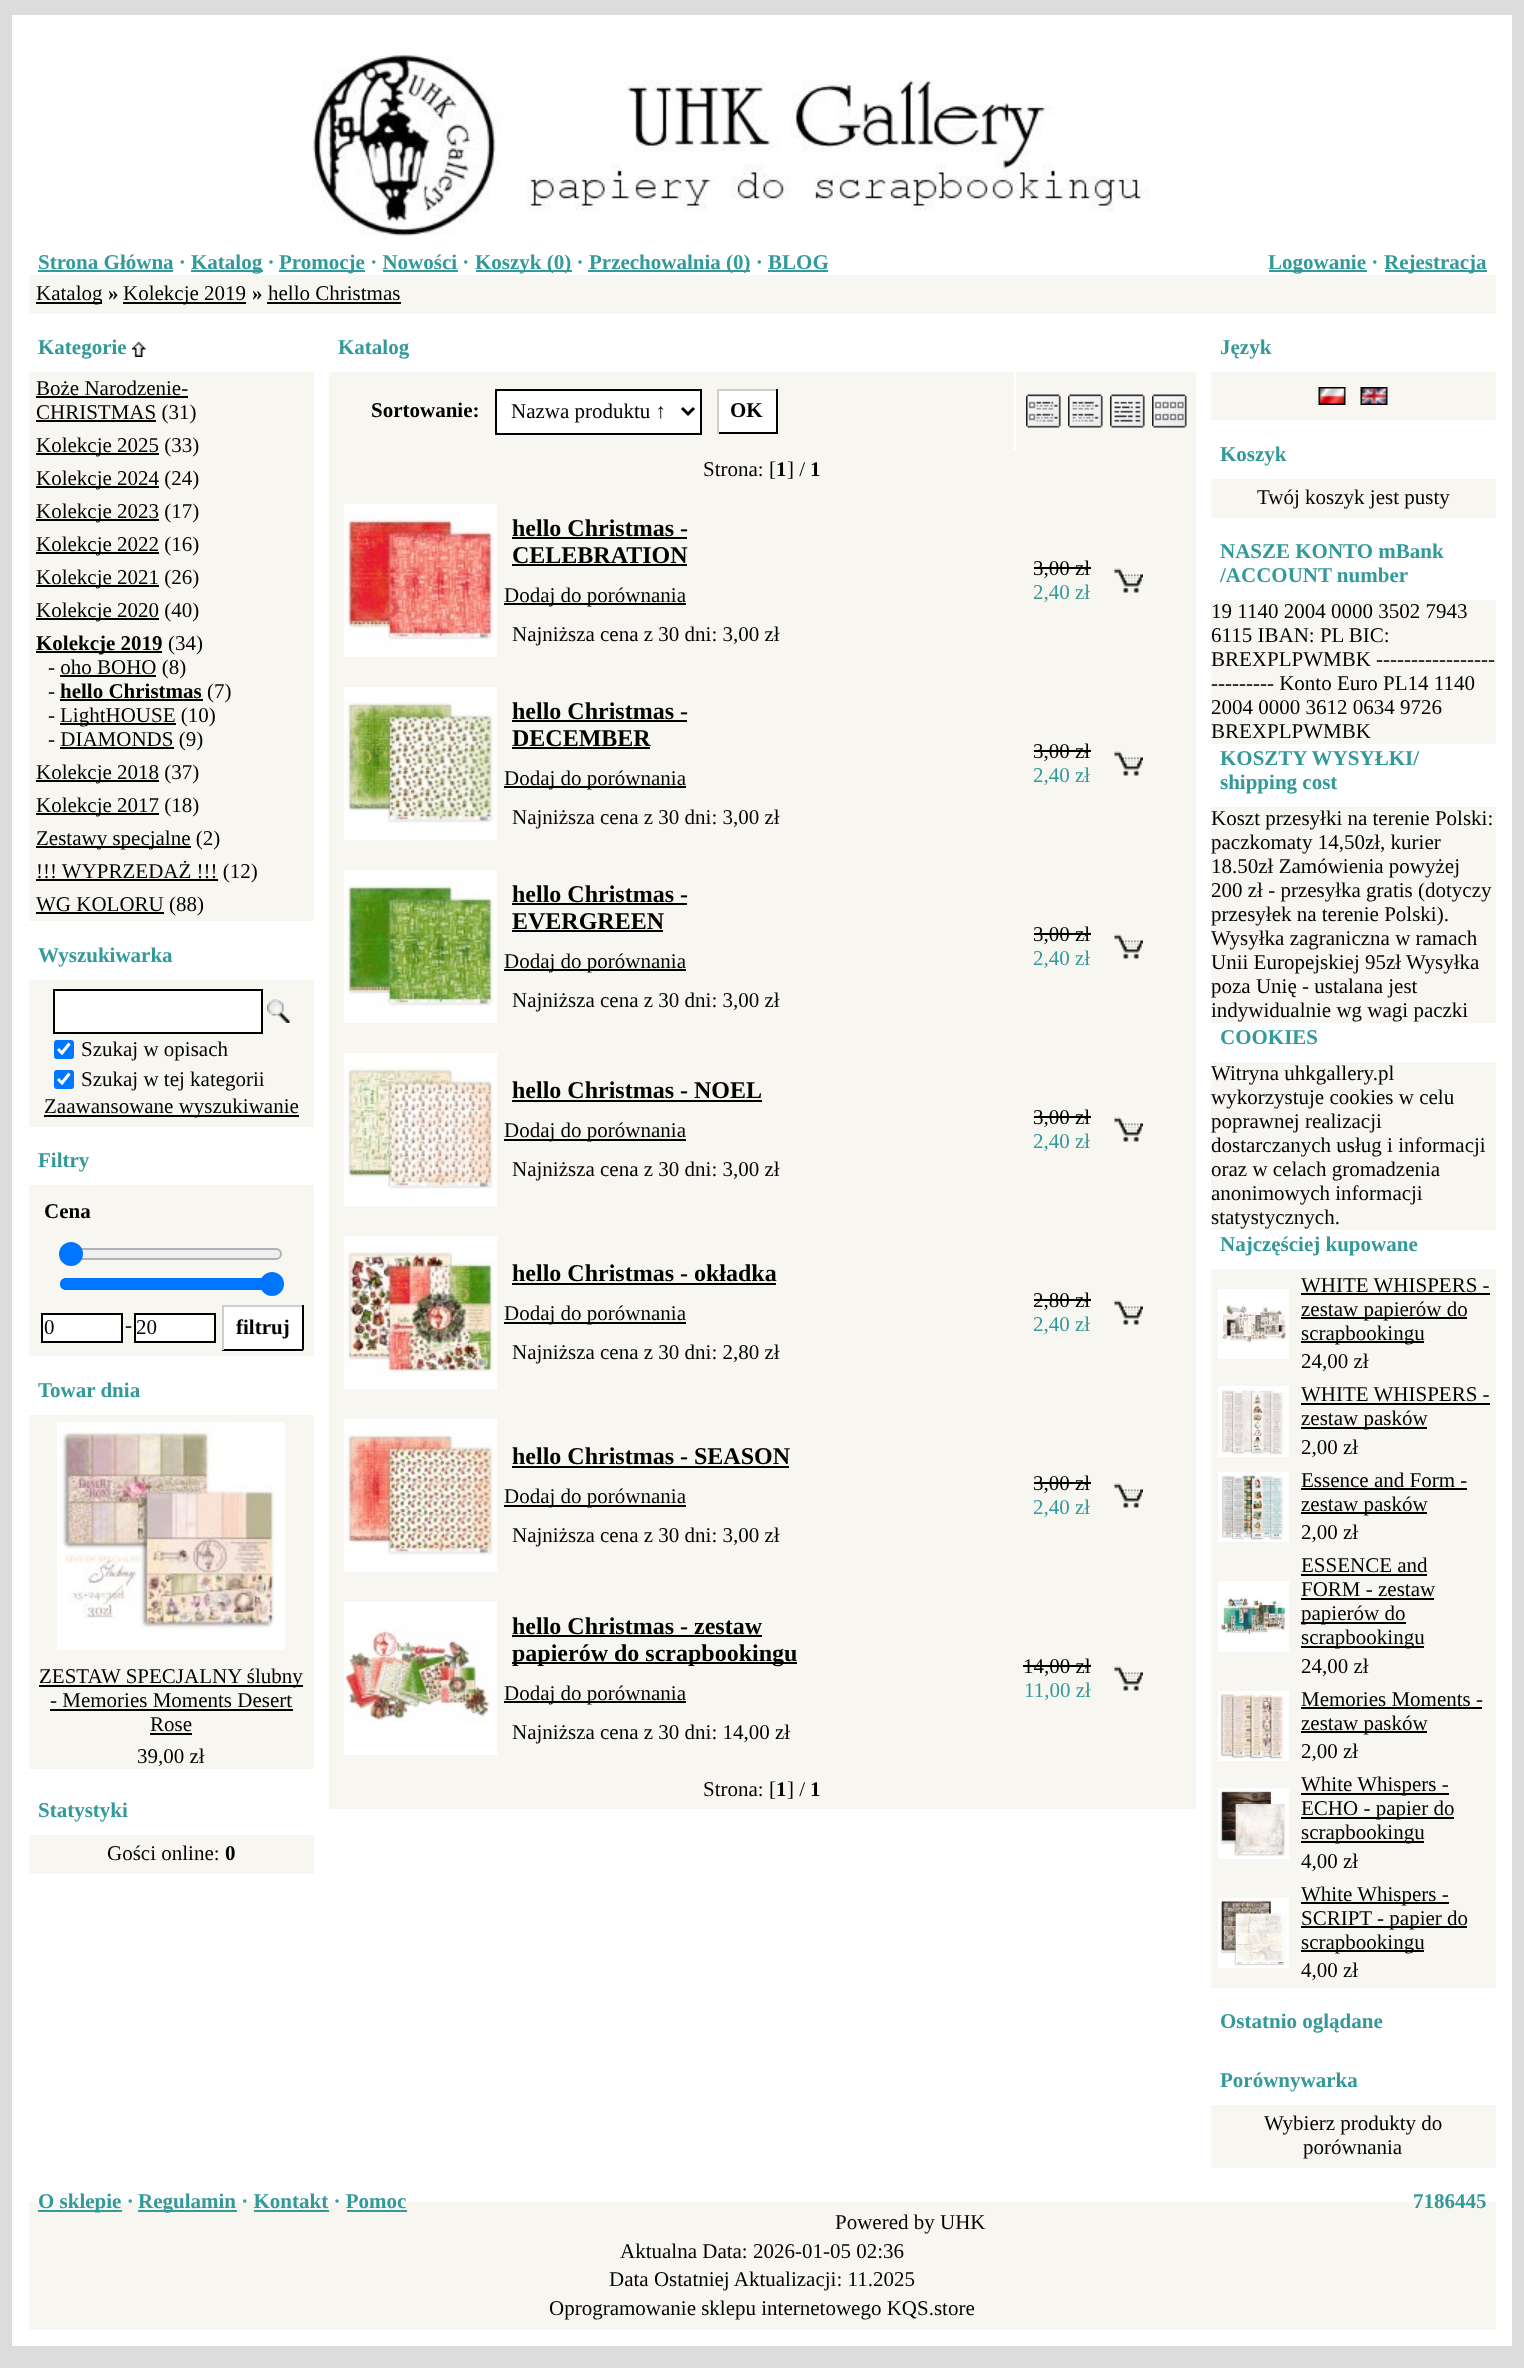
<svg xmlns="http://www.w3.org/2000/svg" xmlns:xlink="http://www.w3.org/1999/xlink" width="1524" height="2368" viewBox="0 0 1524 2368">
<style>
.cls-1{font:bold 21px Liberation Serif;fill:#339999}
.cls-2{font:21px Liberation Serif;fill:#000000}
.cls-3{font:bold 21px Liberation Serif;fill:#000000}
.cls-4{font:bold 24px Liberation Serif;fill:#000000}
.cls-5{font:21px Liberation Serif;fill:#339999}
</style>
<rect width="100%" height="100%" fill="#dcdcdc"/>
<rect fill="#ffffff" x="12" y="15" width="1500" height="2331"/>
<image xlink:href="image0.png" x="311" y="54" width="839" height="182"/>
<rect fill="#339999" x="38" y="270" width="135" height="2"/>
<rect fill="#339999" x="191" y="270" width="72" height="2"/>
<rect fill="#339999" x="279" y="270" width="86" height="2"/>
<rect fill="#339999" x="476" y="270" width="96" height="2"/>
<rect fill="#339999" x="588" y="270" width="162" height="2"/>
<rect fill="#339999" x="383" y="270" width="75" height="2"/>
<rect fill="#339999" x="768" y="270" width="60" height="2"/>
<rect fill="#339999" x="1269" y="270" width="98" height="2"/>
<rect fill="#339999" x="1385" y="270" width="102" height="2"/>
<rect fill="#f8f6f0" x="29" y="275" width="1467" height="39"/>
<rect fill="#000000" x="36" y="302" width="66" height="2"/>
<rect fill="#000000" x="123" y="302" width="123" height="2"/>
<rect fill="#000000" x="267" y="302" width="134" height="2"/>
<image xlink:href="image1.png" x="132" y="342" width="14" height="15"/>
<rect fill="#f8f6f0" x="29" y="372" width="285" height="549"/>
<rect fill="#000000" x="36" y="396" width="152" height="2"/>
<rect fill="#000000" x="36" y="420" width="120" height="2"/>
<rect fill="#000000" x="36" y="453" width="123" height="2"/>
<rect fill="#000000" x="36" y="486" width="123" height="2"/>
<rect fill="#000000" x="36" y="519" width="123" height="2"/>
<rect fill="#000000" x="36" y="552" width="123" height="2"/>
<rect fill="#000000" x="36" y="585" width="123" height="2"/>
<rect fill="#000000" x="36" y="618" width="123" height="2"/>
<rect fill="#000000" x="36" y="651" width="126" height="2"/>
<rect fill="#000000" x="60" y="675" width="96" height="2"/>
<rect fill="#000000" x="60" y="699" width="143" height="2"/>
<rect fill="#000000" x="60" y="723" width="116" height="2"/>
<rect fill="#000000" x="60" y="747" width="114" height="2"/>
<rect fill="#000000" x="36" y="780" width="123" height="2"/>
<rect fill="#000000" x="36" y="813" width="123" height="2"/>
<rect fill="#000000" x="36" y="846" width="155" height="2"/>
<rect fill="#000000" x="36" y="879" width="182" height="2"/>
<rect fill="#000000" x="36" y="912" width="128" height="2"/>
<rect fill="#f8f6f0" x="29" y="980" width="285" height="147"/>
<rect fill="#ffffff" stroke="#000000" stroke-width="2" x="54" y="990" width="208" height="43"/>
<image xlink:href="image2.png" x="267" y="999" width="23" height="24"/>
<rect fill="#0075ff" x="54" y="1040" width="20" height="19" rx="3"/>
<path fill="none" stroke="#ffffff" stroke-width="3.1" d="M58 1049L62 1053L69.5 1043.5"/>
<rect fill="#0075ff" x="54" y="1070" width="20" height="19" rx="3"/>
<path fill="none" stroke="#ffffff" stroke-width="3.1" d="M58 1079L62 1083L69.5 1073.5"/>
<rect fill="#000000" x="44" y="1115" width="255" height="2"/>
<rect fill="#f8f6f0" x="29" y="1185" width="285" height="171"/>
<rect fill="#efefef" stroke="#b2b2b2" stroke-width="2" x="61" y="1249" width="220" height="10" rx="5"/>
<circle fill="#0075ff" cx="71" cy="1254" r="12"/>
<rect fill="none" stroke="#b2b2b2" stroke-width="2" x="61" y="1279" width="220" height="10" rx="5"/>
<path fill="#0075ff" d="M66 1278H272V1290H66C62.5 1290 60 1287.5 60 1284C60 1280.5 62.5 1278 66 1278Z"/>
<circle fill="#0075ff" cx="272" cy="1284" r="12"/>
<rect fill="#ffffff" stroke="#000000" stroke-width="2" x="42" y="1314" width="80" height="28"/>
<rect fill="#ffffff" stroke="#000000" stroke-width="2" x="135" y="1314" width="80" height="28"/>
<rect fill="#ffffff" x="224" y="1307" width="78" height="42"/>
<rect fill="#cecece" x="222" y="1305" width="81" height="2"/>
<rect fill="#000000" x="302" y="1305" width="2" height="45"/>
<rect fill="#000000" x="222" y="1349" width="81" height="2"/>
<rect fill="#cecece" x="222" y="1305" width="2" height="45"/>
<rect fill="#f8f6f0" x="29" y="1415" width="285" height="354"/>
<rect fill="none" stroke="#ffffff" stroke-width="2" x="58" y="1423" width="226" height="226"/>
<image xlink:href="image3.png" x="58" y="1423" width="225" height="225"/>
<rect fill="#000000" x="39" y="1685" width="264" height="2"/>
<rect fill="#000000" x="50" y="1709" width="243" height="2"/>
<rect fill="#000000" x="150" y="1733" width="42" height="2"/>
<rect fill="#f8f6f0" x="29" y="1835" width="285" height="39"/>
<rect fill="#f8f6f0" x="329" y="372" width="867" height="78"/>
<rect fill="#ffffff" stroke="#000000" stroke-width="2" x="496" y="390" width="205" height="44"/>
<path fill="none" stroke="#000000" stroke-width="3" d="M682 408L688 414L694 408"/>
<rect fill="#ffffff" x="719" y="391" width="57" height="41"/>
<rect fill="#cecece" x="717" y="389" width="60" height="2"/>
<rect fill="#000000" x="776" y="389" width="2" height="45"/>
<rect fill="#000000" x="717" y="432" width="60" height="2"/>
<rect fill="#cecece" x="717" y="389" width="2" height="45"/>
<rect fill="#ffffff" x="1014" y="372" width="2" height="80"/>
<image xlink:href="image4.png" x="1026" y="394" width="35" height="34"/>
<image xlink:href="image5.png" x="1068" y="394" width="35" height="34"/>
<image xlink:href="image6.png" x="1110" y="394" width="35" height="34"/>
<image xlink:href="image7.png" x="1152" y="394" width="35" height="34"/>
<rect fill="#f8f6f0" x="329" y="450" width="867" height="1359"/>
<rect fill="none" stroke="#ffffff" stroke-width="2" x="345" y="505" width="151" height="151"/>
<image xlink:href="image8.png" x="345" y="505" width="150" height="150"/>
<rect fill="#000000" x="512" y="537" width="175" height="2"/>
<rect fill="#000000" x="512" y="564" width="175" height="2"/>
<rect fill="#000000" x="504" y="603" width="182" height="2"/>
<rect fill="#000000" x="1034" y="567" width="57" height="2"/>
<image xlink:href="image9.png" x="1114" y="568" width="29" height="25"/>
<rect fill="none" stroke="#ffffff" stroke-width="2" x="345" y="688" width="151" height="151"/>
<image xlink:href="image10.png" x="345" y="689" width="150" height="149"/>
<rect fill="#000000" x="512" y="720" width="175" height="2"/>
<rect fill="#000000" x="512" y="747" width="138" height="2"/>
<rect fill="#000000" x="504" y="786" width="182" height="2"/>
<rect fill="#000000" x="1034" y="750" width="57" height="2"/>
<image xlink:href="image9.png" x="1114" y="751" width="29" height="25"/>
<rect fill="none" stroke="#ffffff" stroke-width="2" x="345" y="871" width="151" height="151"/>
<image xlink:href="image11.png" x="345" y="872" width="150" height="149"/>
<rect fill="#000000" x="512" y="903" width="175" height="2"/>
<rect fill="#000000" x="512" y="930" width="151" height="2"/>
<rect fill="#000000" x="504" y="969" width="182" height="2"/>
<rect fill="#000000" x="1034" y="933" width="57" height="2"/>
<image xlink:href="image9.png" x="1114" y="934" width="29" height="25"/>
<rect fill="none" stroke="#ffffff" stroke-width="2" x="345" y="1054" width="151" height="151"/>
<image xlink:href="image12.png" x="345" y="1055" width="150" height="149"/>
<rect fill="#000000" x="512" y="1100" width="250" height="2"/>
<rect fill="#000000" x="504" y="1139" width="182" height="2"/>
<rect fill="#000000" x="1034" y="1116" width="57" height="2"/>
<image xlink:href="image9.png" x="1114" y="1117" width="29" height="25"/>
<rect fill="none" stroke="#ffffff" stroke-width="2" x="345" y="1237" width="151" height="151"/>
<image xlink:href="image13.png" x="345" y="1238" width="150" height="149"/>
<rect fill="#000000" x="512" y="1283" width="264" height="2"/>
<rect fill="#000000" x="504" y="1322" width="182" height="2"/>
<rect fill="#000000" x="1034" y="1299" width="57" height="2"/>
<image xlink:href="image9.png" x="1114" y="1300" width="29" height="25"/>
<rect fill="none" stroke="#ffffff" stroke-width="2" x="345" y="1420" width="151" height="151"/>
<image xlink:href="image14.png" x="345" y="1421" width="150" height="149"/>
<rect fill="#000000" x="512" y="1466" width="277" height="2"/>
<rect fill="#000000" x="504" y="1505" width="182" height="2"/>
<rect fill="#000000" x="1034" y="1482" width="57" height="2"/>
<image xlink:href="image9.png" x="1114" y="1483" width="29" height="25"/>
<rect fill="none" stroke="#ffffff" stroke-width="2" x="345" y="1603" width="151" height="151"/>
<image xlink:href="image15.png" x="345" y="1604" width="150" height="149"/>
<rect fill="#000000" x="512" y="1635" width="250" height="2"/>
<rect fill="#000000" x="512" y="1662" width="285" height="2"/>
<rect fill="#000000" x="504" y="1701" width="182" height="2"/>
<rect fill="#000000" x="1023" y="1665" width="68" height="2"/>
<image xlink:href="image9.png" x="1114" y="1666" width="29" height="25"/>
<rect fill="#f8f6f0" x="1211" y="372" width="285" height="48"/>
<image xlink:href="image16.png" x="1318" y="387" width="28" height="18"/>
<image xlink:href="image17.png" x="1360" y="387" width="28" height="18"/>
<rect fill="#f8f6f0" x="1211" y="479" width="285" height="39"/>
<rect fill="#f8f6f0" x="1211" y="600" width="285" height="144"/>
<rect fill="#f8f6f0" x="1211" y="807" width="285" height="216"/>
<rect fill="#f8f6f0" x="1211" y="1062" width="285" height="168"/>
<rect fill="#f8f6f0" x="1211" y="1269" width="285" height="719"/>
<rect fill="none" stroke="#ffffff" stroke-width="2" x="1219" y="1290" width="69" height="68"/>
<image xlink:href="image18.png" x="1219" y="1291" width="68" height="66"/>
<rect fill="#000000" x="1301" y="1293" width="189" height="2"/>
<rect fill="#000000" x="1301" y="1317" width="166" height="2"/>
<rect fill="#000000" x="1301" y="1341" width="123" height="2"/>
<rect fill="none" stroke="#ffffff" stroke-width="2" x="1219" y="1387" width="69" height="69"/>
<image xlink:href="image19.png" x="1220" y="1388" width="67" height="67"/>
<rect fill="#000000" x="1301" y="1403" width="189" height="2"/>
<rect fill="#000000" x="1301" y="1427" width="126" height="2"/>
<rect fill="none" stroke="#ffffff" stroke-width="2" x="1219" y="1473" width="69" height="68"/>
<image xlink:href="image20.png" x="1220" y="1473" width="67" height="67"/>
<rect fill="#000000" x="1301" y="1488" width="166" height="2"/>
<rect fill="#000000" x="1301" y="1512" width="126" height="2"/>
<rect fill="none" stroke="#ffffff" stroke-width="2" x="1219" y="1582" width="69" height="69"/>
<image xlink:href="image21.png" x="1220" y="1583" width="67" height="67"/>
<rect fill="#000000" x="1301" y="1574" width="126" height="2"/>
<rect fill="#000000" x="1301" y="1598" width="133" height="2"/>
<rect fill="#000000" x="1301" y="1622" width="105" height="2"/>
<rect fill="#000000" x="1301" y="1646" width="123" height="2"/>
<rect fill="none" stroke="#ffffff" stroke-width="2" x="1219" y="1692" width="69" height="68"/>
<image xlink:href="image22.png" x="1220" y="1692" width="67" height="67"/>
<rect fill="#000000" x="1301" y="1707" width="181" height="2"/>
<rect fill="#000000" x="1301" y="1731" width="126" height="2"/>
<rect fill="none" stroke="#ffffff" stroke-width="2" x="1219" y="1789" width="69" height="69"/>
<image xlink:href="image23.png" x="1220" y="1790" width="67" height="67"/>
<rect fill="#000000" x="1301" y="1793" width="148" height="2"/>
<rect fill="#000000" x="1301" y="1817" width="153" height="2"/>
<rect fill="#000000" x="1301" y="1841" width="123" height="2"/>
<rect fill="none" stroke="#ffffff" stroke-width="2" x="1219" y="1899" width="69" height="68"/>
<image xlink:href="image24.png" x="1220" y="1899" width="67" height="67"/>
<rect fill="#000000" x="1301" y="1902" width="148" height="2"/>
<rect fill="#000000" x="1301" y="1926" width="166" height="2"/>
<rect fill="#000000" x="1301" y="1950" width="123" height="2"/>
<rect fill="#f8f6f0" x="1211" y="2105" width="285" height="63"/>
<rect fill="#f8f6f0" x="29" y="2202" width="1467" height="128"/>
<rect fill="#339999" x="38" y="2210" width="84" height="2"/>
<rect fill="#339999" x="138" y="2210" width="99" height="2"/>
<rect fill="#339999" x="254" y="2210" width="75" height="2"/>
<rect fill="#339999" x="347" y="2210" width="60" height="2"/>
<text class="cls-1" x="38" y="269">Strona Główna ·</text>
<text class="cls-1" x="191" y="269">Katalog ·</text>
<text class="cls-1" x="279" y="269">Promocje · Nowości ·</text>
<text class="cls-1" x="475" y="269">Koszyk (0) ·</text>
<text class="cls-1" x="589" y="269">Przechowalnia (0) · BLOG</text>
<text class="cls-1" x="1268" y="269">Logowanie ·</text>
<text class="cls-1" x="1384" y="269">Rejestracja</text>
<text class="cls-2" x="36" y="300">Katalog</text>
<text class="cls-3" x="108" y="300">»</text>
<text class="cls-2" x="123" y="300">Kolekcje 2019</text>
<text class="cls-3" x="252" y="300">»</text>
<text class="cls-2" x="268" y="300">hello Christmas</text>
<text class="cls-1" x="38" y="354">Kategorie</text>
<text class="cls-2"><tspan x="36" y="395">Boże Narodzenie-</tspan><tspan x="36" y="419">CHRISTMAS (31)</tspan><tspan x="36" y="452">Kolekcje 2025 (33)</tspan><tspan x="36" y="485">Kolekcje 2024 (24)</tspan><tspan x="36" y="518">Kolekcje 2023 (17)</tspan><tspan x="36" y="551">Kolekcje 2022 (16)</tspan><tspan x="36" y="584">Kolekcje 2021 (26)</tspan><tspan x="36" y="617">Kolekcje 2020 (40)</tspan></text>
<text class="cls-3" x="36" y="650">Kolekcje 2019</text>
<text class="cls-2" x="168" y="650">(34)</text>
<text class="cls-2"><tspan x="48" y="674">- oho BOHO (8)</tspan><tspan x="48" y="698">-</tspan></text>
<text class="cls-3" x="60" y="698">hello Christmas</text>
<text class="cls-2" x="207" y="698">(7)</text>
<text class="cls-2" x="48" y="722">-</text>
<text class="cls-2" x="60" y="722">LightHOUSE (10)</text>
<text class="cls-2" x="48" y="746">- DIAMONDS (9)</text>
<text class="cls-2"><tspan x="36" y="779">Kolekcje 2018 (37)</tspan><tspan x="36" y="812">Kolekcje 2017 (18)</tspan><tspan x="36" y="845">Zestawy specjalne (2)</tspan><tspan x="36" y="878">!!! WYPRZEDAŻ !!! (12)</tspan><tspan x="36" y="911">WG KOLORU (88)</tspan></text>
<text class="cls-1" x="38" y="962">Wyszukiwarka</text>
<text class="cls-2"><tspan x="81" y="1056">Szukaj w opisach</tspan><tspan x="81" y="1086">Szukaj w tej kategorii</tspan></text>
<text class="cls-2" x="44" y="1113">Zaawansowane wyszukiwanie</text>
<text class="cls-1" x="38" y="1167">Filtry</text>
<text class="cls-3" x="44" y="1218">Cena</text>
<text class="cls-2" x="44" y="1334">0</text>
<text class="cls-2" x="125" y="1332">-</text>
<text class="cls-2" x="136" y="1334">20</text>
<text class="cls-3" x="236" y="1334">filtruj</text>
<text class="cls-1" x="38" y="1397">Towar dnia</text>
<text class="cls-2" x="39" y="1683">ZESTAW SPECJALNY ślubny</text>
<text class="cls-2" x="50" y="1707">- Memories Moments Desert</text>
<text class="cls-2" x="150" y="1731">Rose</text>
<text class="cls-2" x="137" y="1763">39,00 zł</text>
<text class="cls-1" x="38" y="1817">Statystyki</text>
<text class="cls-2" x="107" y="1860">Gości online:</text>
<text class="cls-3" x="225" y="1860">0</text>
<text class="cls-1" x="338" y="354">Katalog</text>
<text class="cls-3" x="371" y="417">Sortowanie:</text>
<text class="cls-2" x="511" y="418">Nazwa produktu ↑</text>
<text class="cls-3" x="730" y="417">OK</text>
<text class="cls-2" x="703" y="476">Strona: [</text>
<text class="cls-3" x="776" y="476">1</text>
<text class="cls-2" x="787" y="476">] /</text>
<text class="cls-3" x="810" y="476">1</text>
<text class="cls-4"><tspan x="512" y="536">hello Christmas -</tspan><tspan x="512" y="563">CELEBRATION</tspan></text>
<text class="cls-2" x="504" y="602">Dodaj do porównania</text>
<text class="cls-2" x="512" y="641">Najniższa cena z 30 dni: 3,00 zł</text>
<text class="cls-2" x="1033" y="575">3,00 zł</text>
<text class="cls-5" x="1033" y="599">2,40 zł</text>
<text class="cls-4"><tspan x="512" y="719">hello Christmas -</tspan><tspan x="512" y="746">DECEMBER</tspan></text>
<text class="cls-2" x="504" y="785">Dodaj do porównania</text>
<text class="cls-2" x="512" y="824">Najniższa cena z 30 dni: 3,00 zł</text>
<text class="cls-2" x="1033" y="758">3,00 zł</text>
<text class="cls-5" x="1033" y="782">2,40 zł</text>
<text class="cls-4"><tspan x="512" y="902">hello Christmas -</tspan><tspan x="512" y="929">EVERGREEN</tspan></text>
<text class="cls-2" x="504" y="968">Dodaj do porównania</text>
<text class="cls-2" x="512" y="1007">Najniższa cena z 30 dni: 3,00 zł</text>
<text class="cls-2" x="1033" y="941">3,00 zł</text>
<text class="cls-5" x="1033" y="965">2,40 zł</text>
<text class="cls-4" x="512" y="1098">hello Christmas - NOEL</text>
<text class="cls-2" x="504" y="1137">Dodaj do porównania</text>
<text class="cls-2" x="512" y="1176">Najniższa cena z 30 dni: 3,00 zł</text>
<text class="cls-2" x="1033" y="1124">3,00 zł</text>
<text class="cls-5" x="1033" y="1148">2,40 zł</text>
<text class="cls-4" x="512" y="1281">hello Christmas - okładka</text>
<text class="cls-2" x="504" y="1320">Dodaj do porównania</text>
<text class="cls-2" x="512" y="1359">Najniższa cena z 30 dni: 2,80 zł</text>
<text class="cls-2" x="1033" y="1307">2,80 zł</text>
<text class="cls-5" x="1033" y="1331">2,40 zł</text>
<text class="cls-4" x="512" y="1464">hello Christmas - SEASON</text>
<text class="cls-2" x="504" y="1503">Dodaj do porównania</text>
<text class="cls-2" x="512" y="1542">Najniższa cena z 30 dni: 3,00 zł</text>
<text class="cls-2" x="1033" y="1490">3,00 zł</text>
<text class="cls-5" x="1033" y="1514">2,40 zł</text>
<text class="cls-4"><tspan x="512" y="1634">hello Christmas - zestaw</tspan><tspan x="512" y="1661">papierów do scrapbookingu</tspan></text>
<text class="cls-2" x="504" y="1700">Dodaj do porównania</text>
<text class="cls-2" x="512" y="1739">Najniższa cena z 30 dni: 14,00 zł</text>
<text class="cls-2" x="1023" y="1673">14,00 zł</text>
<text class="cls-5" x="1024" y="1697">11,00 zł</text>
<text class="cls-2" x="703" y="1796">Strona: [</text>
<text class="cls-3" x="776" y="1796">1</text>
<text class="cls-2" x="787" y="1796">] /</text>
<text class="cls-3" x="810" y="1796">1</text>
<text class="cls-1" x="1220" y="354">Język</text>
<text class="cls-1" x="1220" y="461">Koszyk</text>
<text class="cls-2" x="1257" y="504">Twój koszyk jest pusty</text>
<text class="cls-1"><tspan x="1220" y="558">NASZE KONTO mBank</tspan><tspan x="1220" y="582">/ACCOUNT number</tspan></text>
<text class="cls-2"><tspan x="1211" y="618">19 1140 2004 0000 3502 7943</tspan><tspan x="1211" y="642">6115 IBAN: PL BIC:</tspan><tspan x="1211" y="666">BREXPLPWMBK -----------------</tspan><tspan x="1211" y="690">--------- Konto Euro PL14 1140</tspan><tspan x="1211" y="714">2004 0000 3612 0634 9726</tspan><tspan x="1211" y="738">BREXPLPWMBK</tspan></text>
<text class="cls-1"><tspan x="1220" y="765">KOSZTY WYSYŁKI/</tspan><tspan x="1220" y="789">shipping cost</tspan></text>
<text class="cls-2"><tspan x="1211" y="825">Koszt przesyłki na terenie Polski:</tspan><tspan x="1211" y="849">paczkomaty 14,50zł, kurier</tspan><tspan x="1211" y="873">18.50zł Zamówienia powyżej</tspan><tspan x="1211" y="897">200 zł - przesyłka gratis (dotyczy</tspan><tspan x="1211" y="921">przesyłek na terenie Polski).</tspan><tspan x="1211" y="945">Wysyłka zagraniczna w ramach</tspan><tspan x="1211" y="969">Unii Europejskiej 95zł Wysyłka</tspan><tspan x="1211" y="993">poza Unię - ustalana jest</tspan><tspan x="1211" y="1017">indywidualnie wg wagi paczki</tspan></text>
<text class="cls-1" x="1220" y="1044">COOKIES</text>
<text class="cls-2"><tspan x="1211" y="1080">Witryna uhkgallery.pl</tspan><tspan x="1211" y="1104">wykorzystuje cookies w celu</tspan><tspan x="1211" y="1128">poprawnej realizacji</tspan><tspan x="1211" y="1152">dostarczanych usług i informacji</tspan><tspan x="1211" y="1176">oraz w celach gromadzenia</tspan><tspan x="1211" y="1200">anonimowych informacji</tspan><tspan x="1211" y="1224">statystycznych.</tspan></text>
<text class="cls-1" x="1220" y="1251">Najczęściej kupowane</text>
<text class="cls-2"><tspan x="1301" y="1292">WHITE WHISPERS -</tspan><tspan x="1301" y="1316">zestaw papierów do</tspan><tspan x="1301" y="1340">scrapbookingu</tspan><tspan x="1301" y="1368">24,00 zł</tspan><tspan x="1301" y="1401">WHITE WHISPERS -</tspan><tspan x="1301" y="1425">zestaw pasków</tspan><tspan x="1301" y="1454">2,00 zł</tspan><tspan x="1301" y="1487">Essence and Form -</tspan><tspan x="1301" y="1511">zestaw pasków</tspan><tspan x="1301" y="1539">2,00 zł</tspan><tspan x="1301" y="1572">ESSENCE and</tspan><tspan x="1301" y="1596">FORM - zestaw</tspan><tspan x="1301" y="1620">papierów do</tspan><tspan x="1301" y="1644">scrapbookingu</tspan><tspan x="1301" y="1673">24,00 zł</tspan><tspan x="1301" y="1706">Memories Moments -</tspan><tspan x="1301" y="1730">zestaw pasków</tspan><tspan x="1301" y="1758">2,00 zł</tspan><tspan x="1301" y="1791">White Whispers -</tspan><tspan x="1301" y="1815">ECHO - papier do</tspan><tspan x="1301" y="1839">scrapbookingu</tspan><tspan x="1301" y="1868">4,00 zł</tspan><tspan x="1301" y="1901">White Whispers -</tspan><tspan x="1301" y="1925">SCRIPT - papier do</tspan><tspan x="1301" y="1949">scrapbookingu</tspan><tspan x="1301" y="1977">4,00 zł</tspan></text>
<text class="cls-1" x="1220" y="2028">Ostatnio oglądane</text>
<text class="cls-1" x="1220" y="2087">Porównywarka</text>
<text class="cls-2" x="1264" y="2130">Wybierz produkty do</text>
<text class="cls-2" x="1303" y="2154">porównania</text>
<text class="cls-1" x="38" y="2208">O sklepie ·</text>
<text class="cls-1" x="138" y="2208">Regulamin · Kontakt · Pomoc</text>
<text class="cls-1" x="1413" y="2208">7186445</text>
<text class="cls-2" x="835" y="2229">Powered by UHK</text>
<text class="cls-2" x="620" y="2258">Aktualna Data: 2026-01-05 02:36</text>
<text class="cls-2" x="609" y="2286">Data Ostatniej Aktualizacji: 11.2025</text>
<text class="cls-2" x="549" y="2315">Oprogramowanie sklepu internetowego KQS.store</text>
</svg>
